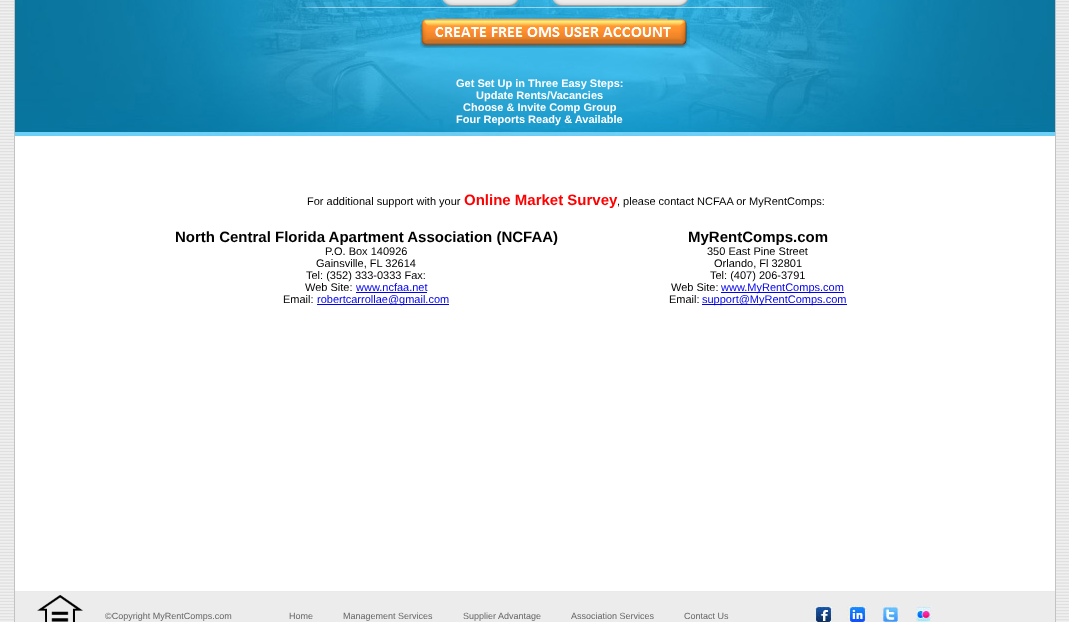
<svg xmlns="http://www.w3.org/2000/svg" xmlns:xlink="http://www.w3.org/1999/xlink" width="1069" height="622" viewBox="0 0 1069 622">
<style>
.cls-1{font:bold 11px Liberation Sans;fill:#ffffff}
.cls-2{font:11px Liberation Sans;fill:#000000}
.cls-3{font:bold 15px Liberation Sans;fill:#ff0000}
.cls-4{font:bold 15px Liberation Sans;fill:#000000}
.cls-5{font:11px Liberation Sans;fill:#0000ee}
.cls-6{font:9px Liberation Sans;fill:#666666}
</style>
<rect width="100%" height="100%" fill="#ffffff"/>
<image xlink:href="image0.png" x="0" y="0" width="1069" height="622"/>
<rect fill="#ffffff" x="15" y="136" width="1040" height="455"/>
<rect fill="none" stroke="#c2c2c2" x="14.5" y="-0.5" width="1041" height="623"/>
<image xlink:href="image1.png" x="15" y="0" width="1040" height="136"/>
<image xlink:href="image2.png" x="441" y="0" width="79" height="8"/>
<image xlink:href="image3.png" x="551" y="0" width="139" height="8"/>
<image xlink:href="image4.png" x="296" y="7" width="481" height="1"/>
<image xlink:href="image5.png" x="420" y="17" width="270" height="31"/>
<rect fill="#0000ee" x="356" y="292" width="71" height="1"/>
<rect fill="#0000ee" x="317" y="304" width="132" height="1"/>
<rect fill="#0000ee" x="721" y="292" width="123" height="1"/>
<rect fill="#0000ee" x="702" y="304" width="145" height="1"/>
<rect fill="#ececec" x="15" y="592" width="1040" height="30"/>
<image xlink:href="image6.png" x="37" y="595" width="46" height="27"/>
<image xlink:href="image7.png" x="814" y="605" width="19" height="17"/>
<image xlink:href="image8.png" x="847" y="605" width="20" height="17"/>
<image xlink:href="image9.png" x="881" y="605" width="19" height="17"/>
<image xlink:href="image10.png" x="916" y="605" width="16" height="17"/>
<text class="cls-1" x="456" y="87">Get Set Up in Three Easy Steps:</text>
<text class="cls-1" x="476" y="99">Update Rents/Vacancies</text>
<text class="cls-1" x="463" y="111">Choose &amp; Invite Comp Group</text>
<text class="cls-1" x="456" y="123">Four Reports Ready &amp; Available</text>
<text class="cls-2" x="307" y="205">For additional support with your</text>
<text class="cls-3" x="464" y="205">Online Market Survey</text>
<text class="cls-2" x="617" y="205">, please contact NCFAA or MyRentComps:</text>
<text class="cls-4" x="175" y="242">North Central Florida Apartment Association (NCFAA)</text>
<text class="cls-2" x="325" y="255">P.O. Box 140926</text>
<text class="cls-2" x="316" y="267">Gainsville, FL 32614</text>
<text class="cls-2" x="306" y="279">Tel: (352) 333-0333 Fax:</text>
<text class="cls-2" x="305" y="291">Web Site:</text>
<text class="cls-5" x="356" y="291">www.ncfaa.net</text>
<text class="cls-2" x="283" y="303">Email:</text>
<text class="cls-5" x="317" y="303">robertcarrollae@gmail.com</text>
<text class="cls-4" x="688" y="242">MyRentComps.com</text>
<text class="cls-2" x="707" y="255">350 East Pine Street</text>
<text class="cls-2" x="714" y="267">Orlando, Fl 32801</text>
<text class="cls-2" x="710" y="279">Tel: (407) 206-3791</text>
<text class="cls-2" x="671" y="291">Web Site:</text>
<text class="cls-5" x="721" y="291">www.MyRentComps.com</text>
<text class="cls-2" x="669" y="303">Email:</text>
<text class="cls-5" x="702" y="303">support@MyRentComps.com</text>
<text class="cls-6" x="105" y="619">©Copyright MyRentComps.com</text>
<text class="cls-6" x="289" y="619">Home</text>
<text class="cls-6" x="343" y="619">Management Services</text>
<text class="cls-6" x="463" y="619">Supplier Advantage</text>
<text class="cls-6" x="571" y="619">Association Services</text>
<text class="cls-6" x="684" y="619">Contact Us</text>
</svg>
